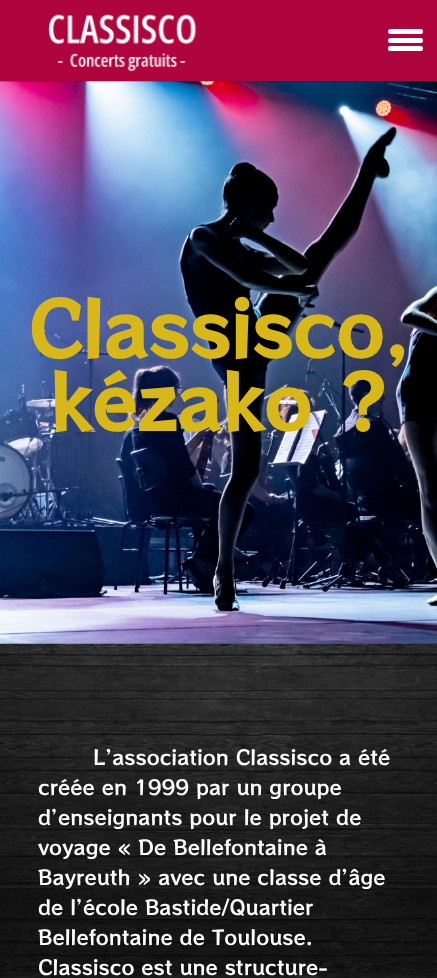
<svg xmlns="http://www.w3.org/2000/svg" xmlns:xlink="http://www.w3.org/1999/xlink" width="437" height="978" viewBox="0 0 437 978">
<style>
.cls-1{font:bold 73.75px RocknRoll One;fill:#d8b819}
.cls-2{font:20px RocknRoll One;fill:#ffffff}
</style>
<rect width="100%" height="100%" fill="#ffffff"/>
<rect fill="#af053e" x="0" y="0" width="437" height="81"/>
<image xlink:href="image0.png" x="48" y="14" width="149" height="58"/>
<rect fill="#ffffff" x="388" y="29" width="35" height="5" rx="2.5"/>
<rect fill="#ffffff" x="388" y="38" width="35" height="5" rx="2.5"/>
<rect fill="#ffffff" x="388" y="46" width="35" height="5" rx="2.5"/>
<image xlink:href="image1.png" x="0" y="81" width="437" height="897"/>
<image xlink:href="image2.png" x="0" y="81" width="437" height="563"/>
<text class="cls-1" x="28" y="358">Classisco,</text>
<text class="cls-1" x="49" y="431">kézako ?</text>
<text class="cls-2" x="93" y="765">L’association Classisco a été</text>
<text class="cls-2"><tspan x="38" y="795">créée en 1999 par un groupe</tspan><tspan x="38" y="825">d’enseignants pour le projet de</tspan><tspan x="38" y="855">voyage « De Bellefontaine à</tspan><tspan x="38" y="885">Bayreuth » avec une classe d’âge</tspan><tspan x="38" y="915">de l’école Bastide/Quartier</tspan><tspan x="38" y="945">Bellefontaine de Toulouse.</tspan><tspan x="38" y="975">Classisco est une structure-</tspan></text>
</svg>
